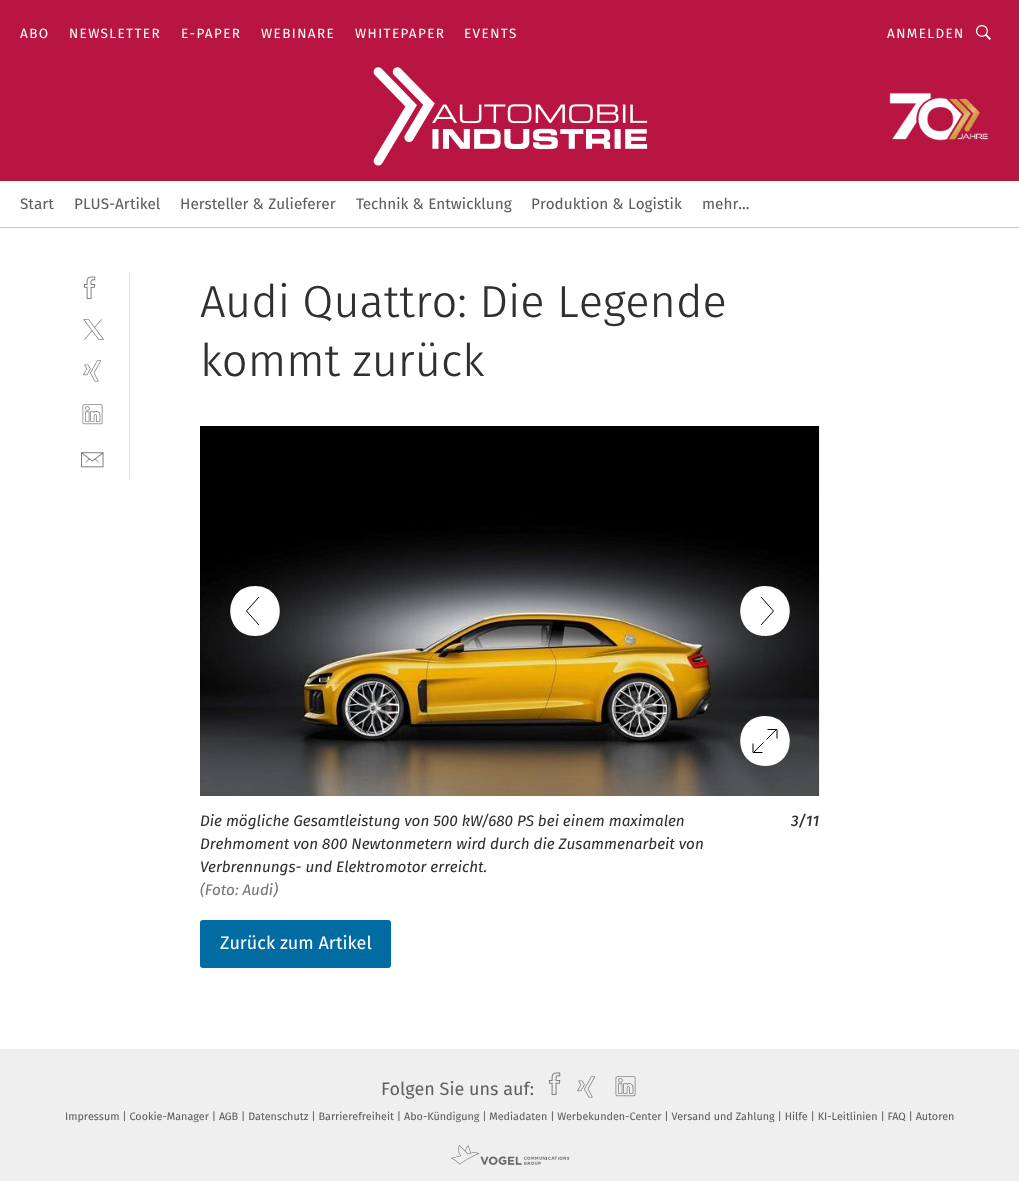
<svg xmlns="http://www.w3.org/2000/svg" xmlns:xlink="http://www.w3.org/1999/xlink" width="1019" height="1181" viewBox="0 0 1019 1181">
<style>
.cls-1{font:13.5px 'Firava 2';letter-spacing:1.4px;fill:#ffffff}
.cls-2{font:15.3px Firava;fill:#5e5e5e}
.cls-3{font:300 45px Firava;fill:#303030}
.cls-4{font:italic 15.3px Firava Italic;fill:#303030}
.cls-5{font:italic 15.3px Firava Italic;fill:#767676}
.cls-6{font:italic 500 15.3px Firava Italic;fill:#303030}
.cls-7{font:18px Firava;fill:#ffffff}
.cls-8{font:18px 'Firava 2';fill:#5e5e5e}
.cls-9{font:10.8px Firava;fill:#5e5e5e}
</style>
<rect width="100%" height="100%" fill="#ffffff"/>
<rect fill="#c6c6c6" x="0" y="227" width="1019" height="1"/>
<rect fill="#b81543" x="0" y="0" width="1019" height="181"/>
<image xlink:href="image0.png" x="976" y="25" width="15" height="15"/>
<image xlink:href="image1.png" x="373" y="67" width="275" height="99"/>
<image xlink:href="image2.png" x="889" y="92" width="100" height="49"/>
<rect fill="#e2e2e2" x="129" y="273" width="1" height="206"/>
<image xlink:href="image3.png" x="84" y="276" width="12" height="23"/>
<image xlink:href="image4.png" x="83" y="319" width="21" height="21"/>
<image xlink:href="image5.png" x="83" y="360" width="19" height="22"/>
<image xlink:href="image6.png" x="82" y="404" width="21" height="21"/>
<image xlink:href="image7.png" x="81" y="452" width="23" height="16"/>
<rect fill="#efefef" x="819" y="426" width="1" height="370"/>
<image xlink:href="image8.png" x="200" y="426" width="619" height="370"/>
<path fill="#ffffff" d="M255 636C288 636 288 586 255 586C222 586 222 636 255 636"/>
<path fill="none" stroke="#000000" d="M259 597L246.5 611L259 625"/>
<path fill="#ffffff" d="M765 586C732 586 732 636 765 636C798 636 798 586 765 586"/>
<path fill="none" stroke="#000000" d="M761 625L773.5 611L761 597"/>
<path fill="#ffffff" d="M765 766C798 766 798 716 765 716C732 716 732 766 765 766"/>
<path fill="none" stroke="#000000" d="M777 738.5V729.5H767.5M753 743.5V752.5H762.5M776.5 729.5L766.5 739.5M763.5 742.5L753.5 752.5"/>
<rect fill="#006ca2" x="200" y="920" width="191" height="48" rx="3"/>
<rect fill="#efefef" x="0" y="1049" width="1019" height="132"/>
<image xlink:href="image9.png" x="549" y="1072" width="12" height="23"/>
<image xlink:href="image10.png" x="577" y="1076" width="19" height="22"/>
<image xlink:href="image11.png" x="615" y="1076" width="21" height="21"/>
<image xlink:href="image12.png" x="450" y="1145" width="120" height="20"/>
<text class="cls-1" x="20" y="38">ABO</text>
<text class="cls-1" x="69" y="38">NEWSLETTER</text>
<text class="cls-1" x="181" y="38">E-PAPER</text>
<text class="cls-1" x="261" y="38">WEBINARE</text>
<text class="cls-1" x="355" y="38">WHITEPAPER</text>
<text class="cls-1" x="464" y="38">EVENTS</text>
<text class="cls-1" x="887" y="38">ANMELDEN</text>
<text class="cls-2" x="20" y="209">Start</text>
<text class="cls-2" x="74" y="209">PLUS-Artikel</text>
<text class="cls-2" x="180" y="209">Hersteller &amp; Zulieferer</text>
<text class="cls-2" x="356" y="209">Technik &amp; Entwicklung</text>
<text class="cls-2" x="531" y="209">Produktion &amp; Logistik</text>
<text class="cls-2" x="702" y="209">mehr...</text>
<text class="cls-3"><tspan x="200" y="317">Audi Quattro: Die Legende</tspan><tspan x="200" y="376">kommt zurück</tspan></text>
<text class="cls-4"><tspan x="200" y="826">Die mögliche Gesamtleistung von 500 kW/680 PS bei einem maximalen</tspan><tspan x="200" y="849">Drehmoment von 800 Newtonmetern wird durch die Zusammenarbeit von</tspan><tspan x="200" y="872">Verbrennungs- und Elektromotor erreicht.</tspan></text>
<text class="cls-5" x="200" y="895">(Foto: Audi)</text>
<text class="cls-6" x="791" y="826">3/11</text>
<text class="cls-7" x="220" y="949">Zurück zum Artikel</text>
<text class="cls-8" x="381" y="1095">Folgen Sie uns auf:</text>
<text class="cls-9" x="65" y="1120">Impressum | Cookie-Manager | AGB | Datenschutz | Barrierefreiheit | Abo-Kündigung | Mediadaten | Werbekunden-Center | Versand und Zahlung | Hilfe | KI-Leitlinien | FAQ | Autoren</text>
</svg>
